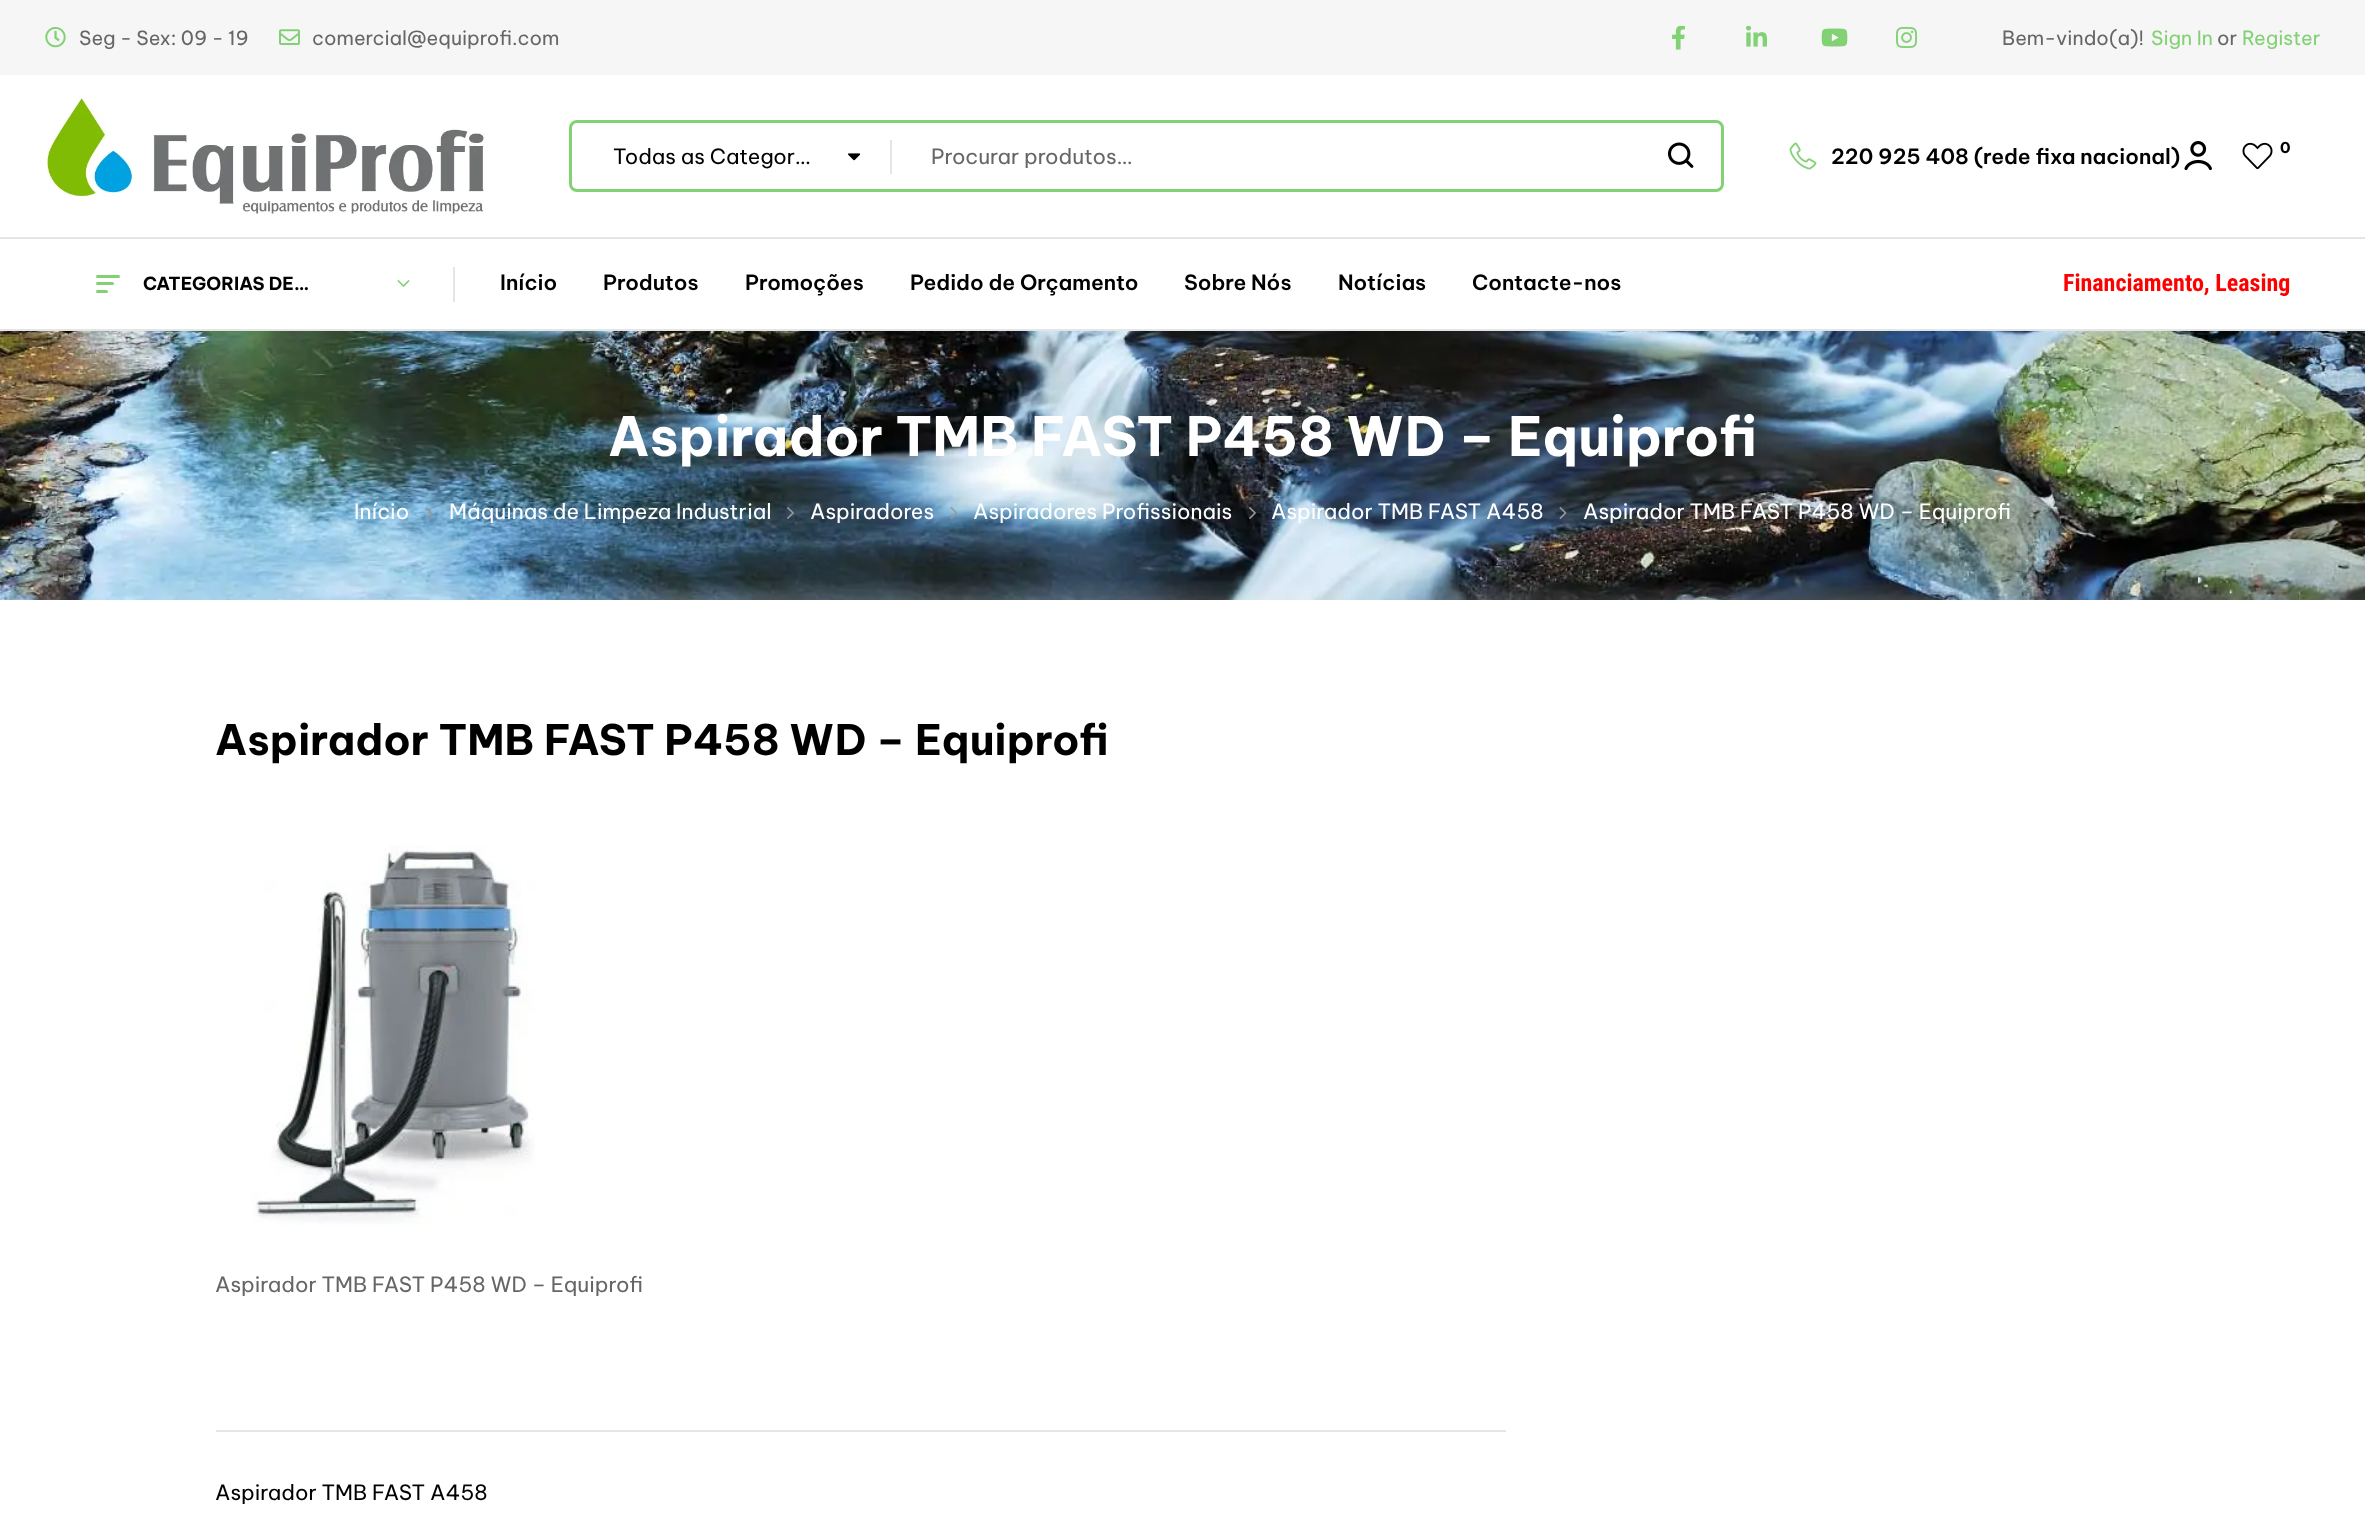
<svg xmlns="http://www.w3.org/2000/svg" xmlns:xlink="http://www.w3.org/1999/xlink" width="2365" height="1513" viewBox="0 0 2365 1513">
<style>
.cls-1{font:19.5px Be Vietnam Pro;fill:#666666}
.cls-2{font:19.5px Be Vietnam Pro;fill:#82d175}
.cls-3{font:21px Be Vietnam Pro;fill:#000000}
.cls-4{font:21px Be Vietnam Pro;fill:#666666}
.cls-5{font:600 21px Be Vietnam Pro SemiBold;fill:#000000}
.cls-6{font:bold 15px Be Vietnam Pro;fill:#000000}
.cls-7{font:bold 18px Be Vietnam Pro;fill:#000000}
.cls-8{font:bold 24px Roboto Condensed;fill:#ff0000}
.cls-9{font:bold 54px Be Vietnam Pro;fill:#ffffff}
.cls-10{font:21px Be Vietnam Pro;fill:#ffffff}
.cls-11{font:bold 42px Be Vietnam Pro;fill:#000000}
</style>
<rect width="100%" height="100%" fill="#ffffff"/>
<rect fill="#f6f6f6" x="0" y="0" width="2365" height="75"/>
<image xlink:href="image0.png" x="45" y="27" width="21" height="21"/>
<image xlink:href="image1.png" x="279" y="29" width="21" height="16"/>
<image xlink:href="image2.png" x="1672" y="26" width="13" height="24"/>
<image xlink:href="image3.png" x="1746" y="26" width="21" height="21"/>
<image xlink:href="image4.png" x="1821" y="28" width="27" height="19"/>
<image xlink:href="image5.png" x="1896" y="26" width="22" height="22"/>
<rect fill="#e5e5e5" x="0" y="237" width="2365" height="2"/>
<image xlink:href="image6.png" x="46" y="97" width="439" height="117"/>
<rect fill="none" stroke="#82d175" stroke-width="3" x="570.5" y="121.5" width="1152" height="69" rx="6.5"/>
<image xlink:href="image7.png" x="848" y="153" width="13" height="8"/>
<rect fill="#e5e5e5" x="890" y="140" width="2" height="34"/>
<image xlink:href="image8.png" x="1668" y="142" width="26" height="26"/>
<image xlink:href="image9.png" x="1789" y="142" width="28" height="28"/>
<image xlink:href="image10.png" x="2184" y="141" width="28" height="30"/>
<image xlink:href="image11.png" x="2242" y="142" width="31" height="28"/>
<rect fill="#e5e5e5" x="0" y="329" width="2365" height="2"/>
<rect fill="#82d175" x="96" y="275" width="24" height="3" rx="1.5"/>
<rect fill="#82d175" x="96" y="282" width="18" height="3" rx="1.5"/>
<rect fill="#82d175" x="96" y="290" width="12" height="3" rx="1.5"/>
<image xlink:href="image12.png" x="397" y="280" width="13" height="7"/>
<rect fill="#e5e5e5" x="453" y="267" width="2" height="35"/>
<image xlink:href="image13.png" x="0" y="331" width="2365" height="269"/>
<image xlink:href="image14.png" x="425" y="507" width="8" height="12"/>
<image xlink:href="image15.png" x="787" y="507" width="7" height="12"/>
<image xlink:href="image16.png" x="950" y="507" width="8" height="12"/>
<image xlink:href="image17.png" x="1249" y="507" width="7" height="12"/>
<image xlink:href="image18.png" x="1559" y="507" width="8" height="12"/>
<image xlink:href="image19.png" x="252" y="845" width="283" height="380"/>
<rect fill="#e5e5e5" x="216" y="1430" width="1290" height="2"/>
<text class="cls-1" x="79" y="45">Seg - Sex: 09 - 19</text>
<text class="cls-1" x="312" y="45">comercial@equiprofi.com</text>
<text class="cls-1" x="2002" y="45">Bem-vindo(a)!</text>
<text class="cls-2" x="2151" y="45">Sign In</text>
<text class="cls-1" x="2217" y="45">or</text>
<text class="cls-2" x="2242" y="45">Register</text>
<text class="cls-3" x="613" y="164">Todas as Categor…</text>
<text class="cls-4" x="931" y="164">Procurar produtos…</text>
<text class="cls-5" x="1831" y="164">220 925 408 (rede fixa nacional)</text>
<text class="cls-6" x="2280" y="153">0</text>
<text class="cls-7" x="143" y="290">CATEGORIAS DE…</text>
<text class="cls-5" x="500" y="290">Início</text>
<text class="cls-5" x="603" y="290">Produtos</text>
<text class="cls-5" x="745" y="290">Promoções</text>
<text class="cls-5" x="910" y="290">Pedido de Orçamento</text>
<text class="cls-5" x="1184" y="290">Sobre Nós</text>
<text class="cls-5" x="1338" y="290">Notícias</text>
<text class="cls-5" x="1472" y="290">Contacte-nos</text>
<text class="cls-8" x="2063" y="291">Financiamento, Leasing</text>
<text class="cls-9" x="608" y="456">Aspirador TMB FAST P458 WD – Equiprofi</text>
<text class="cls-10" x="354" y="519">Início</text>
<text class="cls-10" x="449" y="519">Máquinas de Limpeza Industrial</text>
<text class="cls-10" x="810" y="519">Aspiradores</text>
<text class="cls-10" x="973" y="519">Aspiradores Profissionais</text>
<text class="cls-10" x="1271" y="519">Aspirador TMB FAST A458</text>
<text class="cls-10" x="1583" y="519">Aspirador TMB FAST P458 WD – Equiprofi</text>
<text class="cls-11" x="215" y="755">Aspirador TMB FAST P458 WD – Equiprofi</text>
<text class="cls-4" x="215" y="1292">Aspirador TMB FAST P458 WD – Equiprofi</text>
<text class="cls-3" x="215" y="1500">Aspirador TMB FAST A458</text>
</svg>
